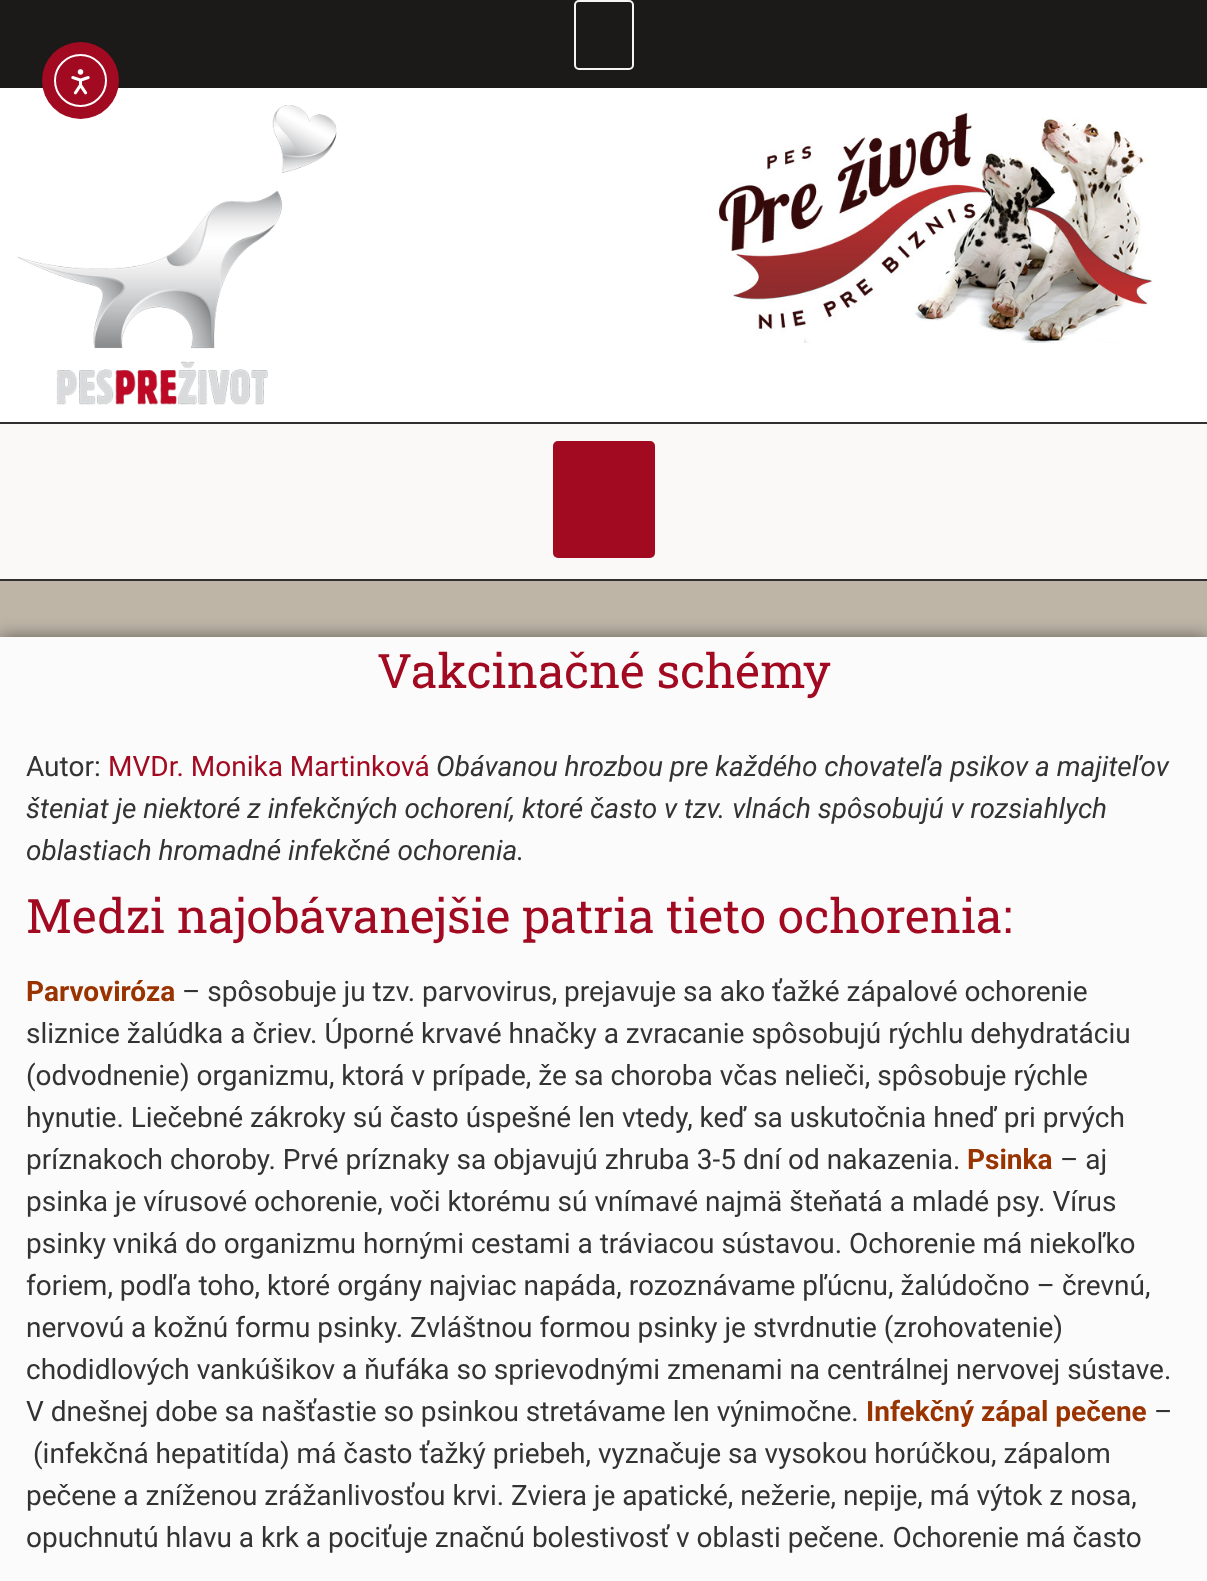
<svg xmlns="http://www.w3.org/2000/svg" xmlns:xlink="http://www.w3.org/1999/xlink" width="1207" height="1581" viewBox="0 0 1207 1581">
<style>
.cls-1{font:47.6px Roboto Slab;fill:#a10a21}
.cls-2{font:28px Roboto;fill:#333333}
.cls-3{font:28px Roboto;fill:#a10a21}
.cls-4{font:italic 28px Roboto;fill:#333333}
.cls-5{font:bold 28px Roboto;fill:#993300}
</style>
<rect width="100%" height="100%" fill="#beb5a7"/>
<rect fill="#1c1a18" x="0" y="0" width="1207" height="88"/>
<rect fill="none" stroke="#f4f4f3" stroke-width="2" x="575" y="1" width="58" height="68" rx="4"/>
<rect fill="#ffffff" x="0" y="88" width="1207" height="334"/>
<image xlink:href="image0.png" x="17" y="105" width="320" height="300"/>
<image xlink:href="image1.png" x="717" y="112" width="436" height="231"/>
<rect fill="#faf9f8" x="0" y="424" width="1207" height="155"/>
<rect fill="#303030" x="0" y="422" width="1207" height="2"/>
<rect fill="#303030" x="0" y="579" width="1207" height="2"/>
<rect fill="#a10a21" x="553" y="441" width="102" height="117" rx="5"/>
<circle fill="#a10a21" cx="80.5" cy="80.5" r="38.5"/>
<circle fill="none" stroke="#ffffff" stroke-width="2" cx="80.5" cy="80.5" r="25.5"/>
<image xlink:href="image2.png" x="71" y="69" width="19" height="26"/>
<rect fill="#000000" fill-opacity="0.5" filter="blur(9px)" x="0" y="637" width="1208" height="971"/>
<rect fill="#fcfbfb" x="0" y="637" width="1207" height="944"/>
<text class="cls-1" x="377" y="688">Vakcinačné schémy</text>
<text class="cls-2" x="26" y="776">Autor:</text>
<text class="cls-3" x="108" y="776">MVDr. Monika Martinková</text>
<text class="cls-4" x="436" y="776">Obávanou hrozbou pre každého chovateľa psikov a majiteľov</text>
<text class="cls-4"><tspan x="26" y="818">šteniat je niektoré z infekčných ochorení, ktoré často v tzv. vlnách spôsobujú v rozsiahlych</tspan><tspan x="26" y="860">oblastiach hromadné infekčné ochorenia.</tspan></text>
<text class="cls-1" x="26" y="933">Medzi najobávanejšie patria tieto ochorenia:</text>
<text class="cls-5" x="26" y="1001">Parvoviróza</text>
<text class="cls-2" x="182" y="1001">– spôsobuje ju tzv. parvovirus, prejavuje sa ako ťažké zápalové ochorenie</text>
<text class="cls-2"><tspan x="26" y="1043">sliznice žalúdka a čriev. Úporné krvavé hnačky a zvracanie spôsobujú rýchlu dehydratáciu</tspan><tspan x="26" y="1085">(odvodnenie) organizmu, ktorá v prípade, že sa choroba včas nelieči, spôsobuje rýchle</tspan><tspan x="26" y="1127">hynutie. Liečebné zákroky sú často úspešné len vtedy, keď sa uskutočnia hneď pri prvých</tspan><tspan x="26" y="1169">príznakoch choroby. Prvé príznaky sa objavujú zhruba 3-5 dní od nakazenia.</tspan></text>
<text class="cls-5" x="967" y="1169">Psinka</text>
<text class="cls-2" x="1060" y="1169">– aj</text>
<text class="cls-2"><tspan x="26" y="1211">psinka je vírusové ochorenie, voči ktorému sú vnímavé najmä šteňatá a mladé psy. Vírus</tspan><tspan x="26" y="1253">psinky vniká do organizmu hornými cestami a tráviacou sústavou. Ochorenie má niekoľko</tspan><tspan x="26" y="1295">foriem, podľa toho, ktoré orgány najviac napáda, rozoznávame pľúcnu, žalúdočno – črevnú,</tspan><tspan x="26" y="1337">nervovú a kožnú formu psinky. Zvláštnou formou psinky je stvrdnutie (zrohovatenie)</tspan><tspan x="26" y="1379">chodidlových vankúšikov a ňufáka so sprievodnými zmenami na centrálnej nervovej sústave.</tspan><tspan x="26" y="1421">V dnešnej dobe sa našťastie so psinkou stretávame len výnimočne.</tspan></text>
<text class="cls-5" x="866" y="1421">Infekčný zápal pečene</text>
<text class="cls-2" x="1154" y="1421">–</text>
<text class="cls-2" x="33" y="1463">(infekčná hepatitída) má často ťažký priebeh, vyznačuje sa vysokou horúčkou, zápalom</text>
<text class="cls-2"><tspan x="26" y="1505">pečene a zníženou zrážanlivosťou krvi. Zviera je apatické, nežerie, nepije, má výtok z nosa,</tspan><tspan x="26" y="1547">opuchnutú hlavu a krk a pociťuje značnú bolestivosť v oblasti pečene. Ochorenie má často</tspan></text>
</svg>
